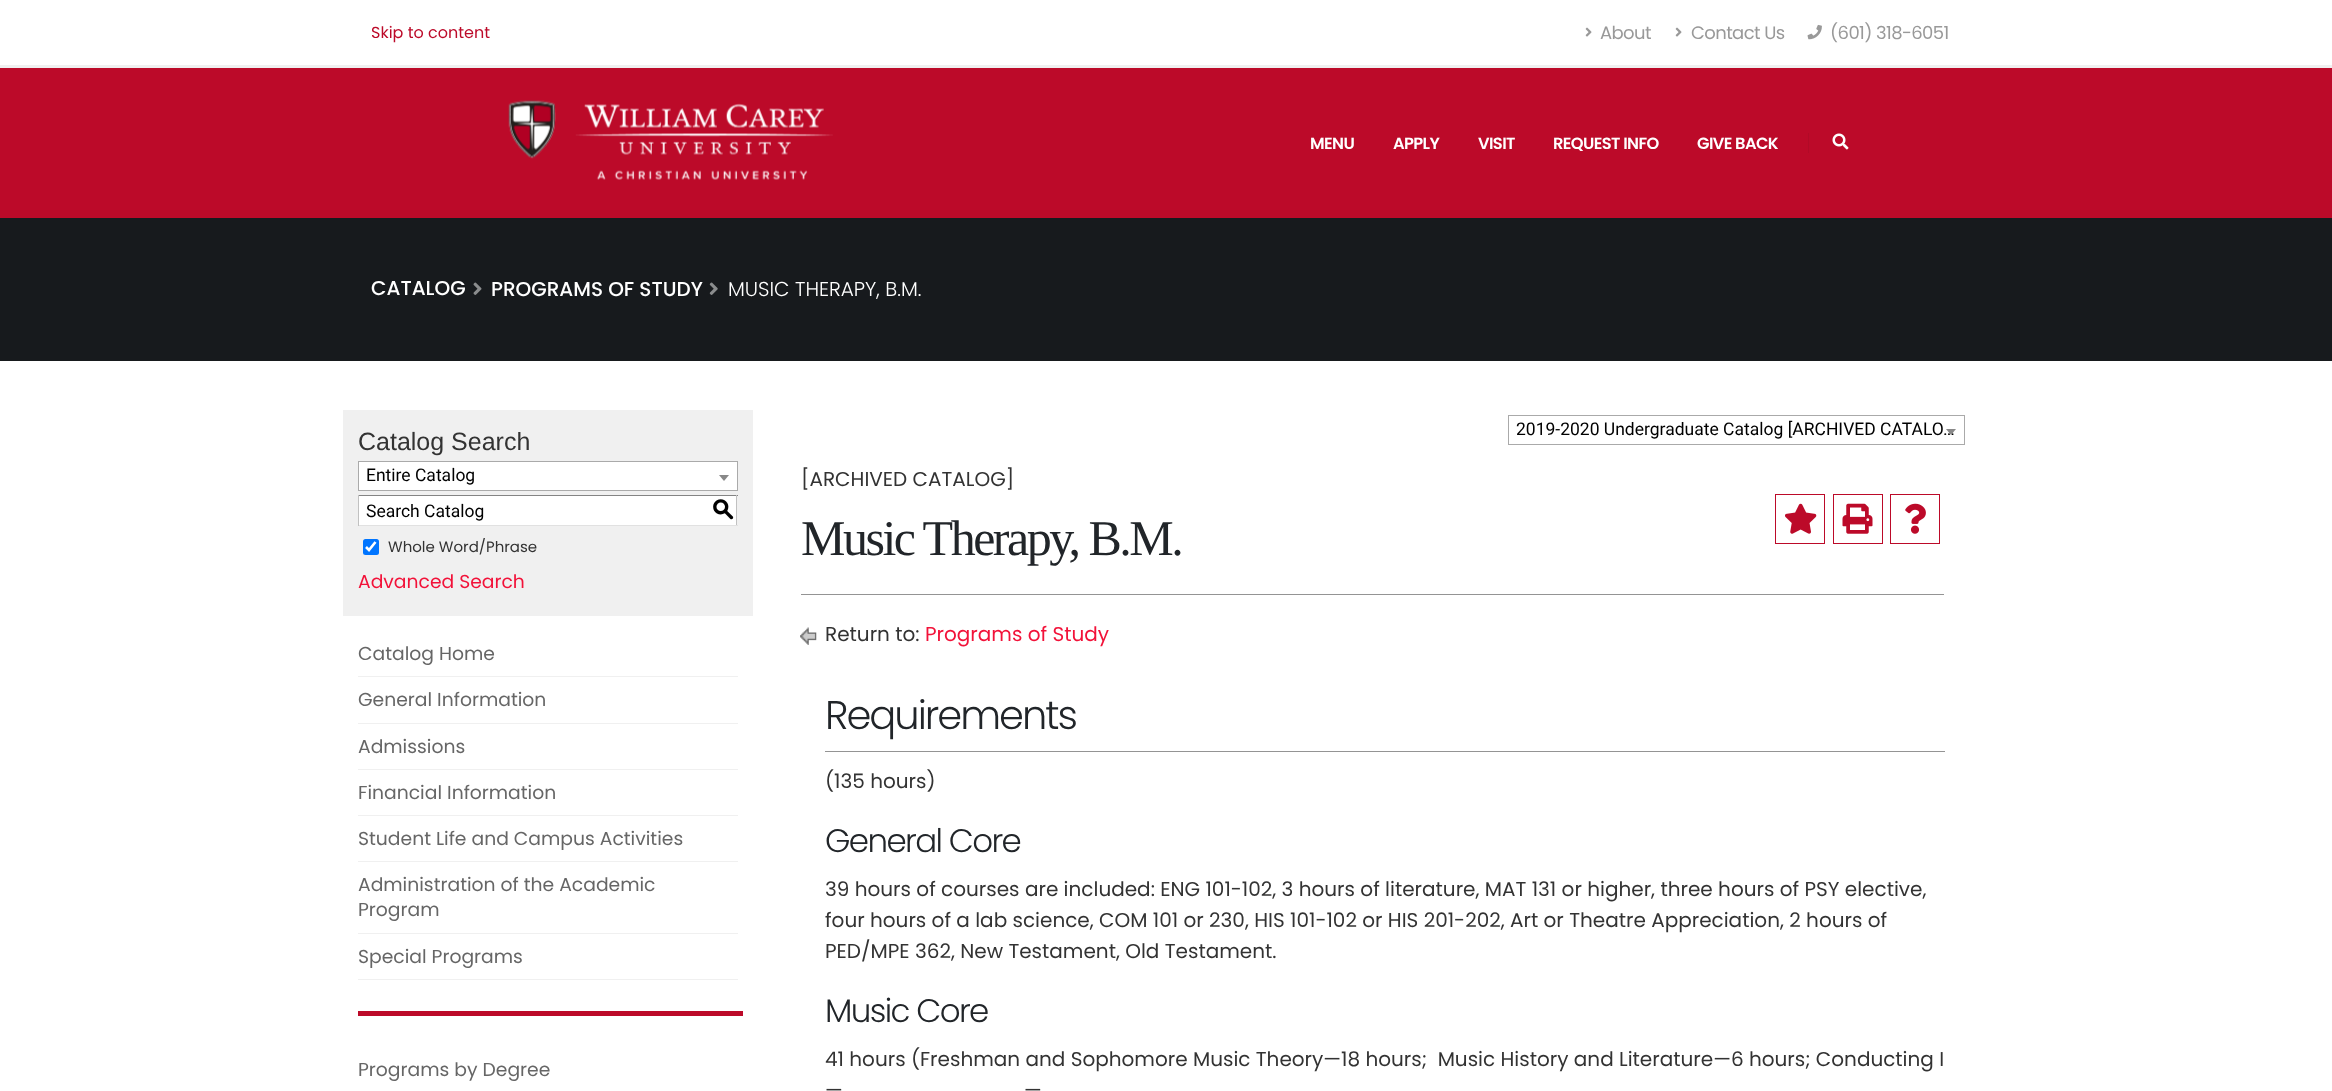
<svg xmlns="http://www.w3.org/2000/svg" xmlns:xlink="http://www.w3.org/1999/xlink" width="2332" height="1091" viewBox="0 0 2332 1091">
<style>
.cls-1{font:16px Poppins;fill:#bc0a29}
.cls-2{font:18px Poppins;letter-spacing:-0.6px;fill:#999999}
.cls-3{font:600 16.25px Poppins;letter-spacing:-0.6px;fill:#ffffff}
.cls-4{font:500 20px Poppins;fill:#ffffff}
.cls-5{font:300 20px Poppins;fill:#ffffff}
.cls-6{font:17.5px Roboto;fill:#000000}
.cls-7{font:25px Liberation Sans;fill:#333333}
.cls-8{font:500 22px 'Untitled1';fill:#000000}
.cls-9{font:15px Poppins;fill:#333333}
.cls-10{font:18.75px Poppins;fill:#f21239}
.cls-11{font:18.75px Poppins;fill:#666666}
.cls-12{font:20px Poppins;fill:#333333}
.cls-13{font:50px Liberation Serif;letter-spacing:-2.5px;fill:#212529}
.cls-14{font:20px Poppins;fill:#f21239}
.cls-15{font:300 40px Poppins;letter-spacing:-2px;fill:#212529}
.cls-16{font:300 32.5px Poppins;letter-spacing:-1.6px;fill:#212529}
</style>
<rect width="100%" height="100%" fill="#ffffff"/>
<rect fill="#bc0a29" x="0" y="68" width="2332" height="150"/>
<rect fill="#f0f0f0" x="0" y="65" width="2332" height="3"/>
<image xlink:href="image0.png" x="1585" y="27" width="7" height="10"/>
<image xlink:href="image0.png" x="1675" y="27" width="7" height="10"/>
<image xlink:href="image1.png" x="1807" y="24" width="15" height="16"/>
<image xlink:href="image2.png" x="508" y="100" width="325" height="80"/>
<rect fill="#b10a27" x="1808" y="133" width="1" height="20"/>
<image xlink:href="image3.png" x="1832" y="133" width="17" height="17"/>
<rect fill="#171a1d" x="0" y="218" width="2332" height="143"/>
<image xlink:href="image4.png" x="473" y="282" width="9" height="13"/>
<image xlink:href="image5.png" x="709" y="282" width="9" height="13"/>
<rect fill="none" stroke="#aaaaaa" x="1508.5" y="415.5" width="456" height="29"/>
<rect fill="#f0f0f0" x="343" y="410" width="410" height="206"/>
<rect fill="#ffffff" stroke="#aaaaaa" x="358.5" y="461.5" width="379" height="29"/>
<path fill="#888888" d="M719 475H729L724 481Z"/>
<rect fill="#ffffff" x="359" y="496" width="377" height="29"/>
<rect fill="#848484" x="358" y="495" width="380" height="1"/>
<rect fill="#c1c1c1" x="736" y="495" width="1" height="31"/>
<rect fill="#e1e1e1" x="358" y="525" width="380" height="1"/>
<rect fill="#c1c1c1" x="358" y="495" width="1" height="31"/>
<rect fill="#0075ff" x="363" y="539" width="16" height="16" rx="2.5"/>
<path fill="none" stroke="#ffffff" stroke-width="2.6" d="M366 547L369 550L375.5 542"/>
<rect fill="#f0f0f0" x="358" y="676" width="380" height="1"/>
<rect fill="#f0f0f0" x="358" y="723" width="380" height="1"/>
<rect fill="#f0f0f0" x="358" y="769" width="380" height="1"/>
<rect fill="#f0f0f0" x="358" y="815" width="380" height="1"/>
<rect fill="#f0f0f0" x="358" y="861" width="380" height="1"/>
<rect fill="#f0f0f0" x="358" y="933" width="380" height="1"/>
<rect fill="#f0f0f0" x="358" y="979" width="380" height="1"/>
<rect fill="#bc0a29" x="358" y="1011" width="385" height="5"/>
<rect fill="none" stroke="#bc0a29" x="1775.5" y="494.5" width="49" height="49"/>
<image xlink:href="image6.png" x="1785" y="503" width="32" height="31"/>
<rect fill="none" stroke="#bc0a29" x="1833.5" y="494.5" width="49" height="49"/>
<image xlink:href="image7.png" x="1842" y="503" width="31" height="31"/>
<rect fill="none" stroke="#bc0a29" x="1890.5" y="494.5" width="49" height="49"/>
<image xlink:href="image8.png" x="1905" y="503" width="21" height="31"/>
<rect fill="#949494" x="801" y="594" width="1143" height="1"/>
<image xlink:href="image9.png" x="800" y="627" width="17" height="18"/>
<rect fill="#949494" x="825" y="751" width="1120" height="1"/>
<text class="cls-1" x="371" y="38">Skip to content</text>
<text class="cls-2" x="1600" y="39">About</text>
<text class="cls-2" x="1691" y="39">Contact Us</text>
<text class="cls-2" x="1830" y="39">(601) 318-6051</text>
<text class="cls-3" x="1310" y="149">MENU</text>
<text class="cls-3" x="1393" y="149">APPLY</text>
<text class="cls-3" x="1478" y="149">VISIT</text>
<text class="cls-3" x="1553" y="149">REQUEST INFO</text>
<text class="cls-3" x="1697" y="149">GIVE BACK</text>
<text class="cls-4" x="371" y="295">CATALOG</text>
<text class="cls-4" x="491" y="296">PROGRAMS OF STUDY</text>
<text class="cls-5" x="728" y="296">MUSIC THERAPY, B.M.</text>
<text class="cls-6" x="1516" y="435">2019-2020 Undergraduate Catalog [ARCHIVED CATALO…</text>
<path fill="#888888" d="M1946 429H1956L1951 435Z"/>
<text class="cls-7" x="358" y="450">Catalog Search</text>
<text class="cls-6" x="366" y="481">Entire Catalog</text>
<text class="cls-6" x="366" y="517">Search Catalog</text>
<text class="cls-8" x="712" y="516">S</text>
<text class="cls-9" x="388" y="552">Whole Word/Phrase</text>
<text class="cls-10" x="358" y="588">Advanced Search</text>
<text class="cls-11" x="358" y="660">Catalog Home</text>
<text class="cls-11" x="358" y="706">General Information</text>
<text class="cls-11" x="358" y="753">Admissions</text>
<text class="cls-11" x="358" y="799">Financial Information</text>
<text class="cls-11" x="358" y="845">Student Life and Campus Activities</text>
<text class="cls-11"><tspan x="358" y="891">Administration of the Academic</tspan><tspan x="358" y="916">Program</tspan></text>
<text class="cls-11" x="358" y="963">Special Programs</text>
<text class="cls-11" x="358" y="1076">Programs by Degree</text>
<text class="cls-12" x="801" y="486">[ARCHIVED CATALOG]</text>
<text class="cls-13" x="801" y="555">Music Therapy, B.M.</text>
<text class="cls-12" x="825" y="641">Return to:</text>
<text class="cls-14" x="925" y="641">Programs of Study</text>
<text class="cls-15" x="825" y="729">Requirements</text>
<text class="cls-12" x="825" y="788">(135 hours)</text>
<text class="cls-16" x="825" y="852">General Core</text>
<text class="cls-12"><tspan x="825" y="896">39 hours of courses are included: ENG 101-102, 3 hours of literature, MAT 131 or higher, three hours of PSY elective,</tspan><tspan x="825" y="927">four hours of a lab science, COM 101 or 230, HIS 101-102 or HIS 201-202, Art or Theatre Appreciation, 2 hours of</tspan><tspan x="825" y="958">PED/MPE 362, New Testament, Old Testament.</tspan></text>
<text class="cls-16" x="825" y="1022">Music Core</text>
<text class="cls-12" xml:space="preserve"><tspan x="825" y="1066">41 hours (Freshman and Sophomore Music Theory—18 hours;  Music History and Literature—6 hours; Conducting I</tspan><tspan x="825" y="1097">—</tspan></text>
<text class="cls-12" x="1024" y="1097">—</text>
</svg>
